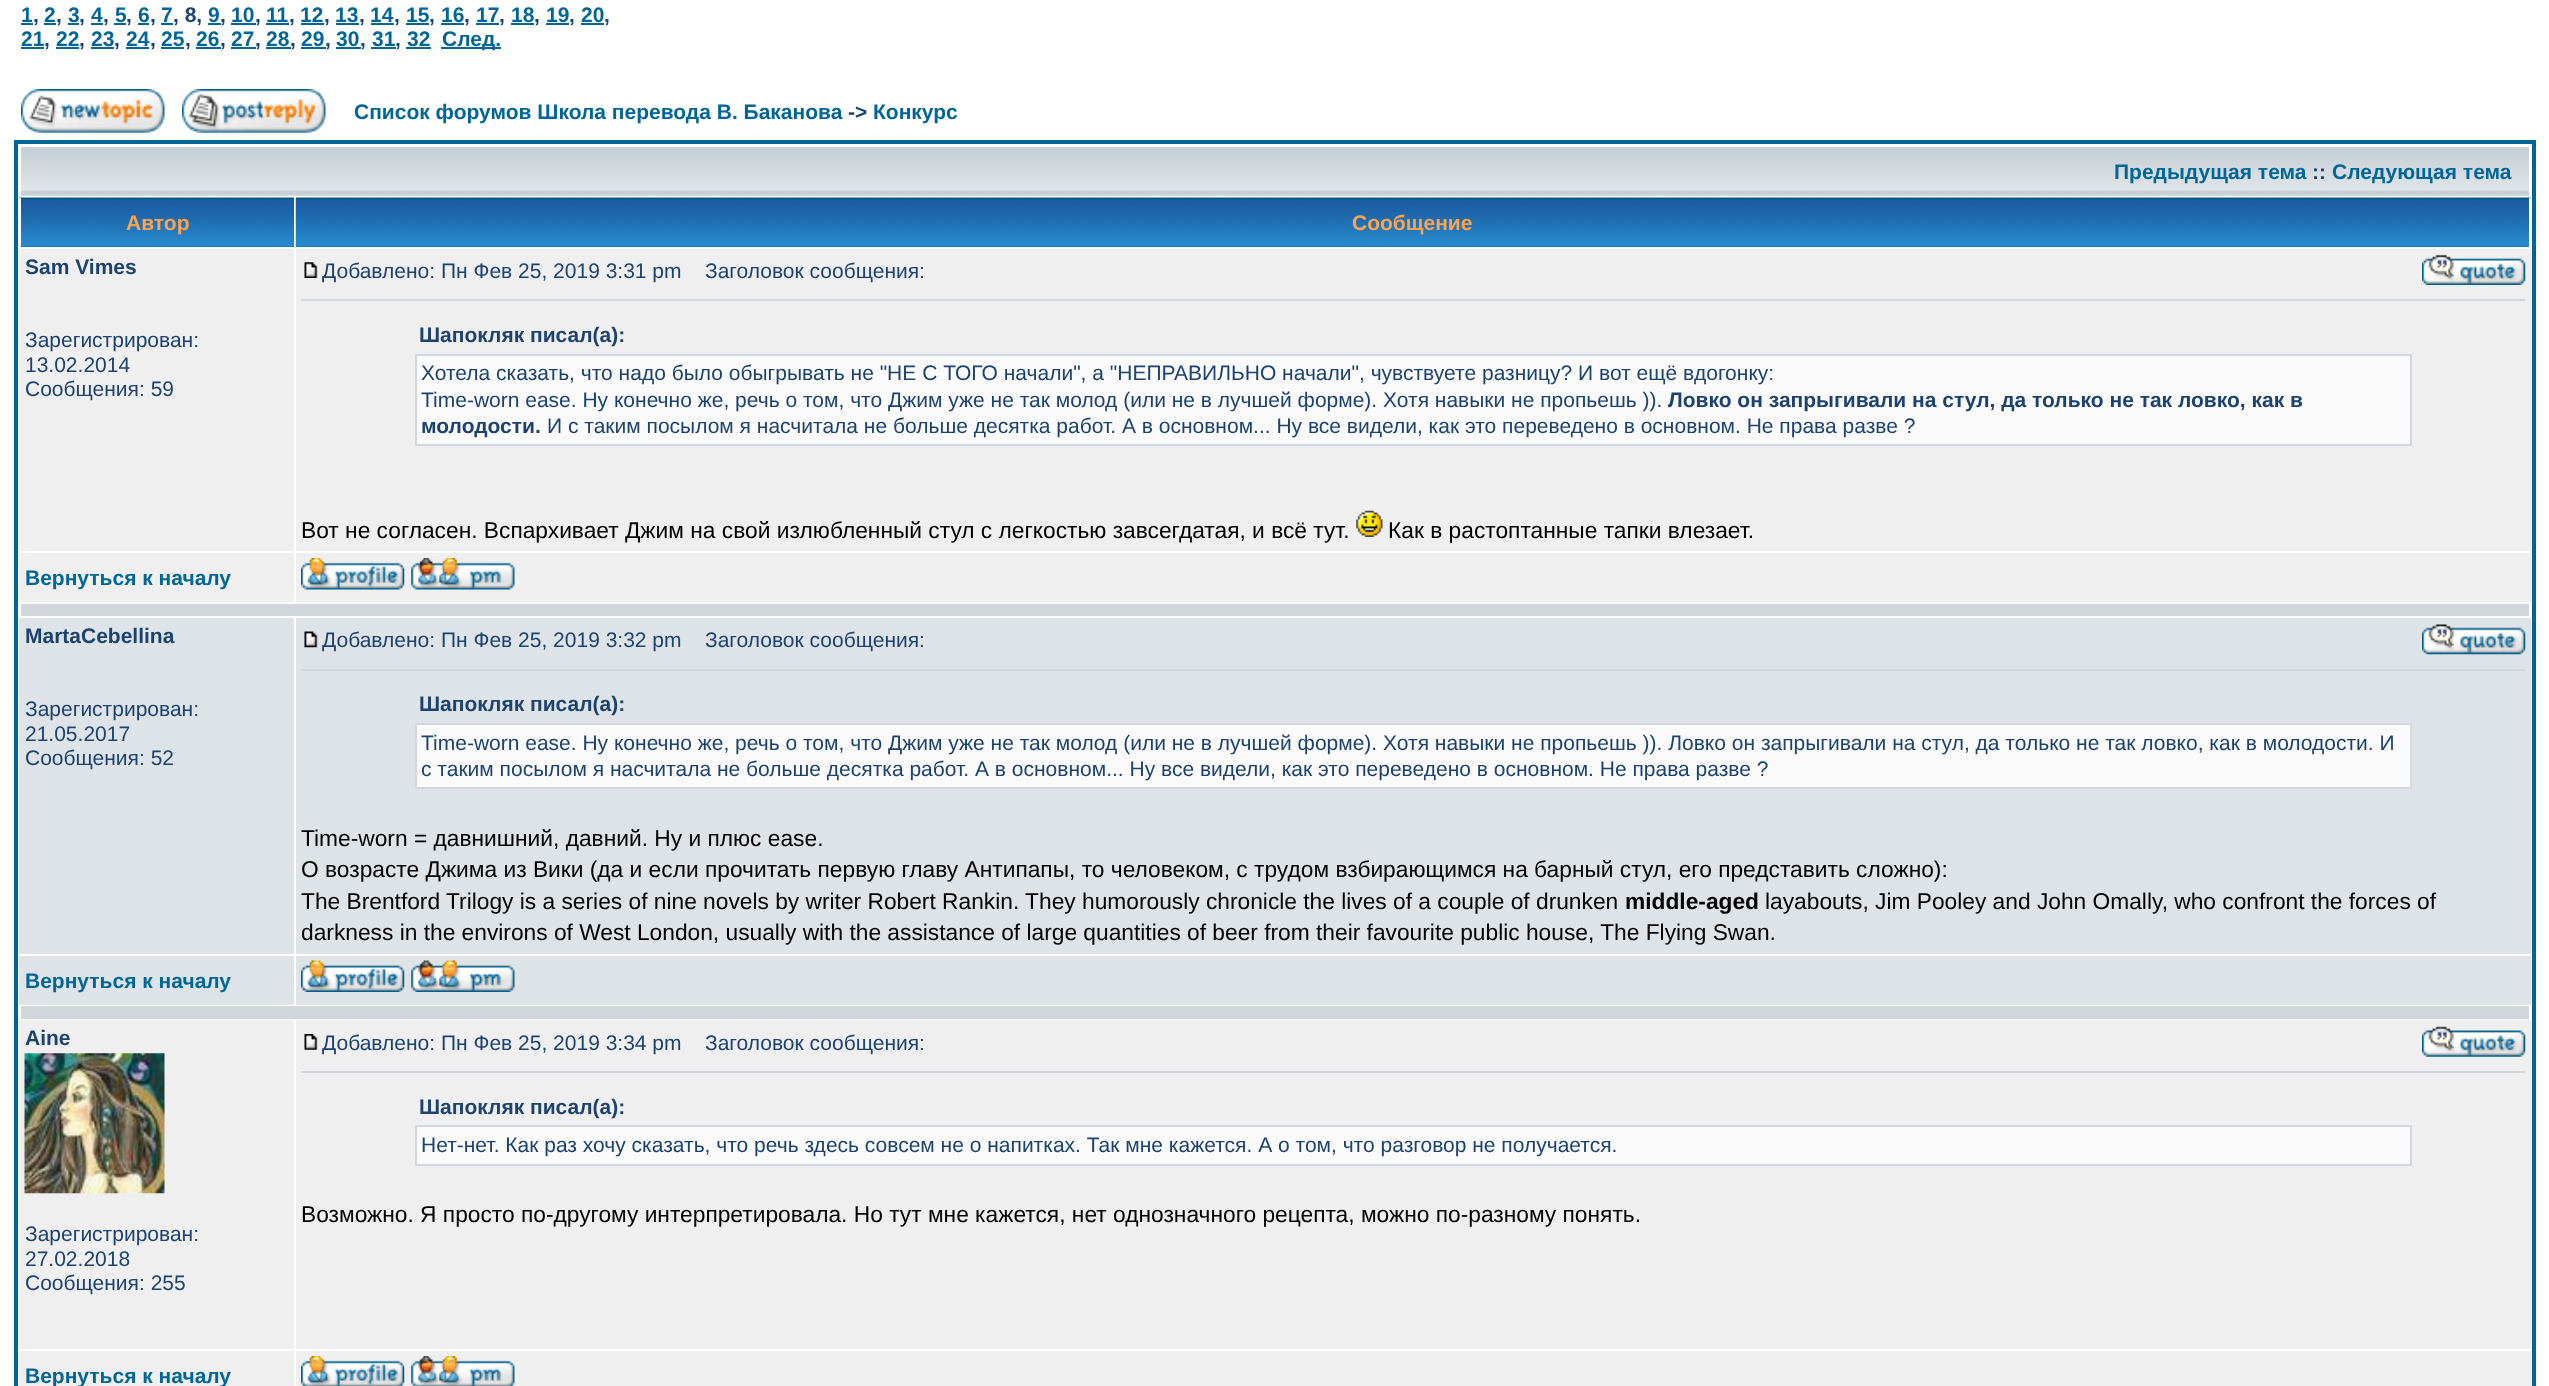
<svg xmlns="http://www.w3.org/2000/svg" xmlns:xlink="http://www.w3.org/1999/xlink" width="2549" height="1386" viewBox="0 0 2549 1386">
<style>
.cls-1{font:bold 21px Liberation Sans;fill:#006699}
.cls-2{font:bold 21px Liberation Sans;fill:#1c4271}
.cls-3{font:bold 21px Liberation Sans;fill:#ffa34f}
.cls-4{font:21px Liberation Sans;fill:#1c4271}
.cls-5{font:22.75px Liberation Sans;fill:#000000}
.cls-6{font:bold 22.75px Liberation Sans;fill:#000000}
</style>
<rect width="100%" height="100%" fill="#ffffff"/>
<rect fill="#006699" x="21" y="23" width="12" height="2"/>
<rect fill="#006699" x="44" y="23" width="12" height="2"/>
<rect fill="#006699" x="68" y="23" width="11" height="2"/>
<rect fill="#006699" x="91" y="23" width="12" height="2"/>
<rect fill="#006699" x="114" y="23" width="12" height="2"/>
<rect fill="#006699" x="138" y="23" width="11" height="2"/>
<rect fill="#006699" x="161" y="23" width="12" height="2"/>
<rect fill="#006699" x="208" y="23" width="13" height="2"/>
<rect fill="#006699" x="231" y="23" width="25" height="2"/>
<rect fill="#006699" x="266" y="23" width="23" height="2"/>
<rect fill="#006699" x="301" y="23" width="23" height="2"/>
<rect fill="#006699" x="336" y="23" width="23" height="2"/>
<rect fill="#006699" x="371" y="23" width="23" height="2"/>
<rect fill="#006699" x="406" y="23" width="23" height="2"/>
<rect fill="#006699" x="441" y="23" width="23" height="2"/>
<rect fill="#006699" x="476" y="23" width="23" height="2"/>
<rect fill="#006699" x="511" y="23" width="23" height="2"/>
<rect fill="#006699" x="546" y="23" width="23" height="2"/>
<rect fill="#006699" x="581" y="23" width="23" height="2"/>
<rect fill="#006699" x="21" y="47" width="23" height="2"/>
<rect fill="#006699" x="56" y="47" width="23" height="2"/>
<rect fill="#006699" x="91" y="47" width="23" height="2"/>
<rect fill="#006699" x="126" y="47" width="23" height="2"/>
<rect fill="#006699" x="161" y="47" width="23" height="2"/>
<rect fill="#006699" x="196" y="47" width="25" height="2"/>
<rect fill="#006699" x="231" y="47" width="25" height="2"/>
<rect fill="#006699" x="266" y="47" width="25" height="2"/>
<rect fill="#006699" x="301" y="47" width="25" height="2"/>
<rect fill="#006699" x="336" y="47" width="25" height="2"/>
<rect fill="#006699" x="371" y="47" width="25" height="2"/>
<rect fill="#006699" x="406" y="47" width="25" height="2"/>
<rect fill="#006699" x="441" y="47" width="60" height="2"/>
<image xlink:href="image0.png" x="21" y="89" width="144" height="44"/>
<image xlink:href="image1.png" x="182" y="89" width="144" height="44"/>
<rect fill="none" stroke="#006699" stroke-width="4" x="16" y="142" width="2518" height="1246"/>
<image xlink:href="image2.png" x="21" y="147" width="2508" height="49"/>
<rect fill="#006699" x="21" y="246" width="273" height="1"/>
<image xlink:href="image3.png" x="19" y="197" width="275" height="50"/>
<rect fill="#ffffff" x="19" y="198" width="2" height="49"/>
<rect fill="#006699" x="296" y="246" width="2233" height="1"/>
<image xlink:href="image4.png" x="295" y="197" width="2236" height="50"/>
<rect fill="#ffffff" x="2529" y="198" width="2" height="49"/>
<rect fill="#efefef" x="19" y="249" width="275" height="302"/>
<rect fill="#efefef" x="296" y="249" width="2235" height="302"/>
<image xlink:href="image5.png" x="304" y="262" width="14" height="16"/>
<image xlink:href="image6.png" x="2422" y="254" width="104" height="31"/>
<rect fill="#d1d7dc" x="301" y="299" width="2224" height="2"/>
<rect fill="#fafafa" stroke="#d1d7dc" stroke-width="2" x="416" y="355" width="1995" height="90"/>
<image xlink:href="image7.png" x="1356" y="510" width="27" height="27"/>
<rect fill="#efefef" x="19" y="553" width="275" height="49"/>
<rect fill="#efefef" x="296" y="553" width="2235" height="49"/>
<image xlink:href="image8.png" x="301" y="558" width="104" height="32"/>
<image xlink:href="image9.png" x="411" y="558" width="104" height="32"/>
<rect fill="#d1d7dc" x="21" y="604" width="2508" height="12"/>
<rect fill="#dee3e7" x="19" y="618" width="275" height="336"/>
<rect fill="#dee3e7" x="296" y="618" width="2235" height="336"/>
<image xlink:href="image10.png" x="304" y="631" width="14" height="17"/>
<image xlink:href="image11.png" x="2422" y="624" width="104" height="31"/>
<rect fill="#d1d7dc" x="301" y="669" width="2224" height="2"/>
<rect fill="#fafafa" stroke="#d1d7dc" stroke-width="2" x="416" y="724" width="1995" height="64"/>
<rect fill="#dee3e7" x="19" y="956" width="275" height="49"/>
<rect fill="#dee3e7" x="296" y="956" width="2235" height="49"/>
<image xlink:href="image12.png" x="301" y="960" width="104" height="32"/>
<image xlink:href="image13.png" x="411" y="960" width="104" height="32"/>
<rect fill="#d1d7dc" x="21" y="1006" width="2508" height="13"/>
<rect fill="#efefef" x="19" y="1020" width="275" height="329"/>
<image xlink:href="image14.png" x="24" y="1053" width="141" height="141"/>
<rect fill="#efefef" x="296" y="1020" width="2235" height="329"/>
<image xlink:href="image15.png" x="304" y="1034" width="14" height="16"/>
<image xlink:href="image16.png" x="2422" y="1026" width="104" height="31"/>
<rect fill="#d1d7dc" x="301" y="1071" width="2224" height="2"/>
<rect fill="#fafafa" stroke="#d1d7dc" stroke-width="2" x="416" y="1126" width="1995" height="39"/>
<rect fill="#efefef" x="19" y="1351" width="275" height="35"/>
<rect fill="#efefef" x="296" y="1351" width="2235" height="35"/>
<image xlink:href="image17.png" x="301" y="1356" width="104" height="30"/>
<image xlink:href="image18.png" x="411" y="1356" width="104" height="30"/>
<text class="cls-1" x="21" y="22">1</text>
<text class="cls-2" x="33" y="22">,</text>
<text class="cls-1" x="44" y="22">2</text>
<text class="cls-2" x="56" y="22">,</text>
<text class="cls-1" x="68" y="22">3</text>
<text class="cls-2" x="79" y="22">,</text>
<text class="cls-1" x="91" y="22">4</text>
<text class="cls-2" x="103" y="22">,</text>
<text class="cls-1" x="115" y="22">5</text>
<text class="cls-2" x="126" y="22">,</text>
<text class="cls-1" x="138" y="22">6</text>
<text class="cls-2" x="150" y="22">,</text>
<text class="cls-1" x="161" y="22">7</text>
<text class="cls-2" x="173" y="22">, 8,</text>
<text class="cls-1" x="208" y="22">9</text>
<text class="cls-2" x="220" y="22">,</text>
<text class="cls-1" x="231" y="22">10</text>
<text class="cls-2" x="255" y="22">,</text>
<text class="cls-1" x="266" y="22">11</text>
<text class="cls-2" x="289" y="22">,</text>
<text class="cls-1" x="300" y="22">12</text>
<text class="cls-2" x="324" y="22">,</text>
<text class="cls-1" x="335" y="22">13</text>
<text class="cls-2" x="359" y="22">,</text>
<text class="cls-1" x="370" y="22">14</text>
<text class="cls-2" x="394" y="22">,</text>
<text class="cls-1" x="406" y="22">15</text>
<text class="cls-2" x="429" y="22">,</text>
<text class="cls-1" x="441" y="22">16</text>
<text class="cls-2" x="464" y="22">,</text>
<text class="cls-1" x="476" y="22">17</text>
<text class="cls-2" x="499" y="22">,</text>
<text class="cls-1" x="511" y="22">18</text>
<text class="cls-2" x="534" y="22">,</text>
<text class="cls-1" x="546" y="22">19</text>
<text class="cls-2" x="569" y="22">,</text>
<text class="cls-1" x="581" y="22">20</text>
<text class="cls-2" x="604" y="22">,</text>
<text class="cls-1" x="21" y="46">21</text>
<text class="cls-2" x="44" y="46">,</text>
<text class="cls-1" x="56" y="46">22</text>
<text class="cls-2" x="79" y="46">,</text>
<text class="cls-1" x="91" y="46">23</text>
<text class="cls-2" x="114" y="46">,</text>
<text class="cls-1" x="126" y="46">24</text>
<text class="cls-2" x="150" y="46">,</text>
<text class="cls-1" x="161" y="46">25</text>
<text class="cls-2" x="185" y="46">,</text>
<text class="cls-1" x="196" y="46">26</text>
<text class="cls-2" x="220" y="46">,</text>
<text class="cls-1" x="231" y="46">27</text>
<text class="cls-2" x="255" y="46">,</text>
<text class="cls-1" x="266" y="46">28</text>
<text class="cls-2" x="290" y="46">,</text>
<text class="cls-1" x="301" y="46">29</text>
<text class="cls-2" x="325" y="46">,</text>
<text class="cls-1" x="336" y="46">30</text>
<text class="cls-2" x="360" y="46">,</text>
<text class="cls-1" x="372" y="46">31</text>
<text class="cls-2" x="395" y="46">,</text>
<text class="cls-1" x="407" y="46">32</text>
<text class="cls-1" x="442" y="46">След.</text>
<text class="cls-1" x="354" y="119">Список форумов Школа перевода В. Баканова</text>
<text class="cls-2" x="848" y="119">-&gt;</text>
<text class="cls-1" x="873" y="119">Конкурс</text>
<text class="cls-1" x="2114" y="179">Предыдущая тема</text>
<text class="cls-2" x="2312" y="179">::</text>
<text class="cls-1" x="2332" y="179">Следующая тема</text>
<text class="cls-3" x="126" y="230">Автор</text>
<text class="cls-3" x="1352" y="230">Сообщение</text>
<text class="cls-2" x="25" y="274">Sam Vimes</text>
<text class="cls-4"><tspan x="25" y="347">Зарегистрирован:</tspan><tspan x="25" y="372">13.02.2014</tspan><tspan x="25" y="396">Сообщения: 59</tspan></text>
<text class="cls-4" x="322" y="278">Добавлено: Пн Фев 25, 2019 3:31 pm</text>
<text class="cls-4" x="705" y="278">Заголовок сообщения:</text>
<text class="cls-2" x="419" y="342">Шапокляк писал(а):</text>
<text class="cls-4"><tspan x="421" y="380">Хотела сказать, что надо было обыгрывать не "НЕ С ТОГО начали", а "НЕПРАВИЛЬНО начали", чувствуете разницу? И вот ещё вдогонку:</tspan><tspan x="421" y="407">Time-worn ease. Ну конечно же, речь о том, что Джим уже не так молод (или не в лучшей форме). Хотя навыки не пропьешь )).</tspan></text>
<text class="cls-2" x="1668" y="407">Ловко он запрыгивали на стул, да только не так ловко, как в</text>
<text class="cls-2" x="421" y="433">молодости.</text>
<text class="cls-4" x="547" y="433">И с таким посылом я насчитала не больше десятка работ. А в основном... Ну все видели, как это переведено в основном. Не права разве ?</text>
<text class="cls-5" x="301" y="538">Вот не согласен. Вспархивает Джим на свой излюбленный стул с легкостью завсегдатая, и всё тут.</text>
<text class="cls-5" x="1388" y="538">Как в растоптанные тапки влезает.</text>
<text class="cls-1" x="25" y="585">Вернуться к началу</text>
<text class="cls-2" x="25" y="643">MartaCebellina</text>
<text class="cls-4"><tspan x="25" y="716">Зарегистрирован:</tspan><tspan x="25" y="741">21.05.2017</tspan><tspan x="25" y="765">Сообщения: 52</tspan></text>
<text class="cls-4" x="322" y="647">Добавлено: Пн Фев 25, 2019 3:32 pm</text>
<text class="cls-4" x="705" y="647">Заголовок сообщения:</text>
<text class="cls-2" x="419" y="711">Шапокляк писал(а):</text>
<text class="cls-4"><tspan x="421" y="750">Time-worn ease. Ну конечно же, речь о том, что Джим уже не так молод (или не в лучшей форме). Хотя навыки не пропьешь )). Ловко он запрыгивали на стул, да только не так ловко, как в молодости. И</tspan><tspan x="421" y="776">с таким посылом я насчитала не больше десятка работ. А в основном... Ну все видели, как это переведено в основном. Не права разве ?</tspan></text>
<text class="cls-5"><tspan x="301" y="846">Time-worn = давнишний, давний. Ну и плюс ease.</tspan><tspan x="301" y="877">О возрасте Джима из Вики (да и если прочитать первую главу Антипапы, то человеком, с трудом взбирающимся на барный стул, его представить сложно):</tspan><tspan x="301" y="909">The Brentford Trilogy is a series of nine novels by writer Robert Rankin. They humorously chronicle the lives of a couple of drunken</tspan></text>
<text class="cls-6" x="1625" y="909">middle-aged</text>
<text class="cls-5" x="1765" y="909">layabouts, Jim Pooley and John Omally, who confront the forces of</text>
<text class="cls-5" x="301" y="940">darkness in the environs of West London, usually with the assistance of large quantities of beer from their favourite public house, The Flying Swan.</text>
<text class="cls-1" x="25" y="988">Вернуться к началу</text>
<text class="cls-2" x="25" y="1045">Aine</text>
<text class="cls-4"><tspan x="25" y="1241">Зарегистрирован:</tspan><tspan x="25" y="1266">27.02.2018</tspan><tspan x="25" y="1290">Сообщения: 255</tspan></text>
<text class="cls-4" x="322" y="1050">Добавлено: Пн Фев 25, 2019 3:34 pm</text>
<text class="cls-4" x="705" y="1050">Заголовок сообщения:</text>
<text class="cls-2" x="419" y="1114">Шапокляк писал(а):</text>
<text class="cls-4" x="421" y="1152">Нет-нет. Как раз хочу сказать, что речь здесь совсем не о напитках. Так мне кажется. А о том, что разговор не получается.</text>
<text class="cls-5" x="301" y="1222">Возможно. Я просто по-другому интерпретировала. Но тут мне кажется, нет однозначного рецепта, можно по-разному понять.</text>
<text class="cls-1" x="25" y="1383">Вернуться к началу</text>
</svg>
